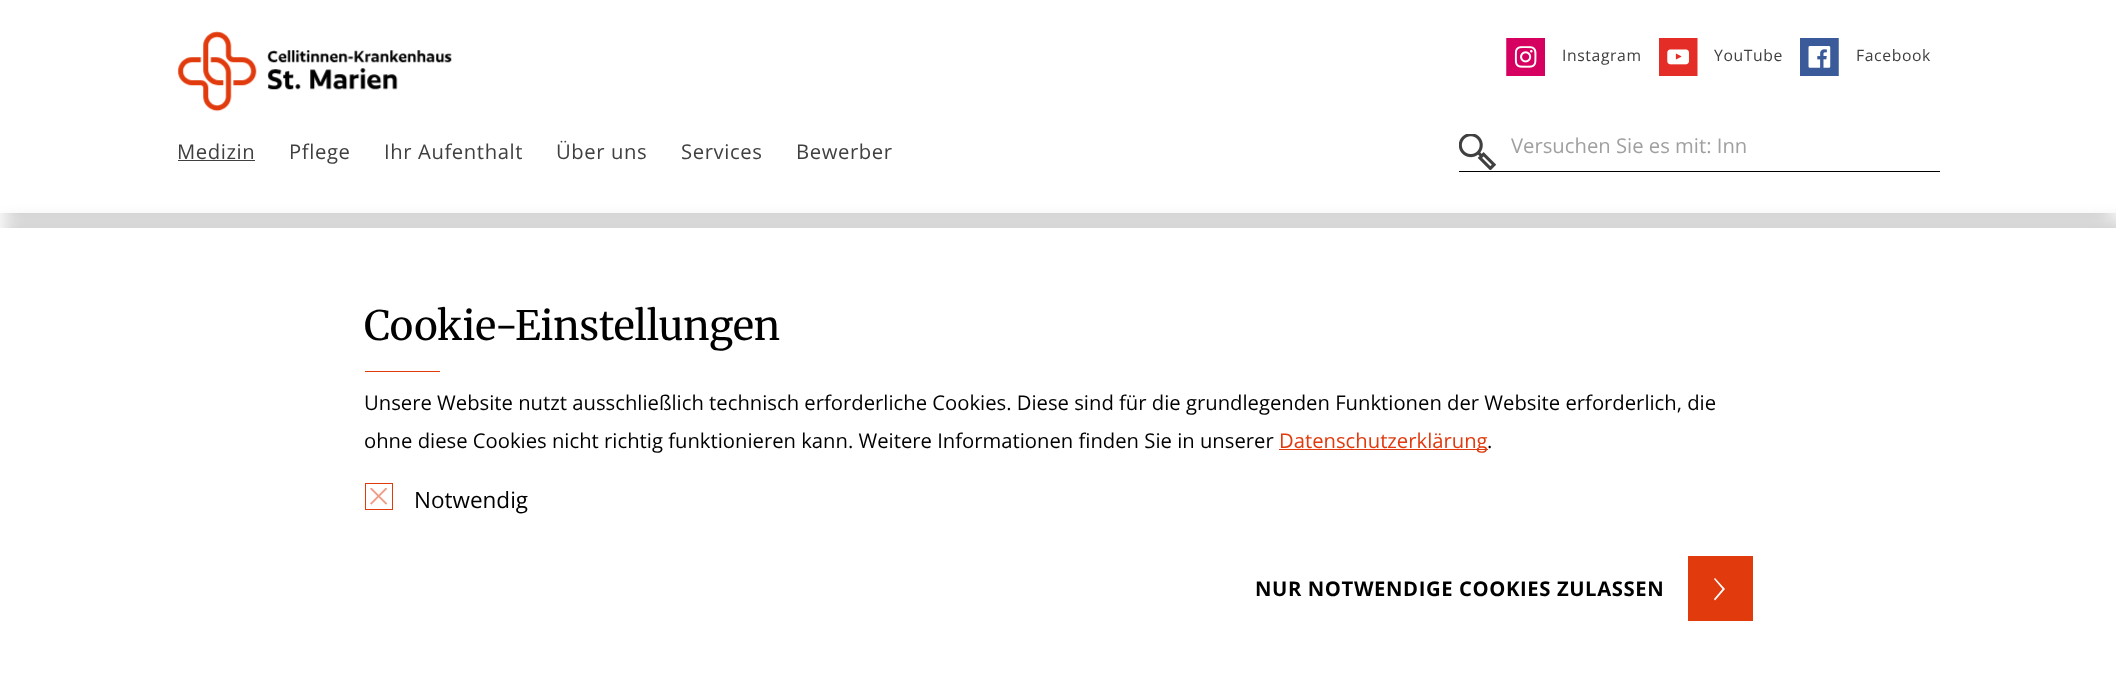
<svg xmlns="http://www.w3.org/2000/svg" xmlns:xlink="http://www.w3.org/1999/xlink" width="2116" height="691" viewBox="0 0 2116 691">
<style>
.cls-1{font:15.75px Open Sans;letter-spacing:0.6px;fill:#404040}
.cls-2{font:20.25px Open Sans;letter-spacing:0.6px;fill:#404040}
.cls-3{font:20.25px Open Sans;fill:#a0a0a0}
.cls-4{font:40.5px Merriweather;fill:#000000}
.cls-5{font:20.25px Open Sans;fill:#000000}
.cls-6{font:20.25px Open Sans;fill:#e03a0d}
.cls-7{font:22.5px Open Sans;fill:#000000}
.cls-8{font:bold 20.25px Open Sans;letter-spacing:0.6px;fill:#000000}
</style>
<rect width="100%" height="100%" fill="#ffffff"/>
<rect fill="#000000" fill-opacity="0.2" filter="blur(9px)" x="5" y="15" width="2106" height="203"/>
<rect fill="#ffffff" x="0" y="0" width="2116" height="213"/>
<image xlink:href="image0.png" x="177" y="31" width="275" height="81"/>
<image xlink:href="image1.png" x="1506" y="38" width="39" height="38"/>
<image xlink:href="image2.png" x="1659" y="38" width="39" height="38"/>
<image xlink:href="image3.png" x="1800" y="38" width="39" height="38"/>
<rect fill="#404040" x="178" y="160" width="77" height="1"/>
<rect fill="#000000" x="1459" y="171" width="481" height="1"/>
<image xlink:href="image4.png" x="1459" y="134" width="37" height="36"/>
<rect fill="#000000" fill-opacity="0.2" filter="blur(9px)" x="5" y="223" width="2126" height="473"/>
<rect fill="#ffffff" x="0" y="228" width="2116" height="463"/>
<rect fill="#e03a0d" x="365" y="371" width="75" height="1"/>
<rect fill="#e03a0d" x="1279" y="449" width="209" height="1"/>
<rect fill="none" stroke="#e03a0d" x="365.5" y="483.5" width="27" height="26"/>
<image xlink:href="image5.png" x="370" y="488" width="18" height="17"/>
<rect fill="#e03a0d" x="1688" y="556" width="65" height="65"/>
<path fill="#ffffff" d="M1715 600.5L1714 599L1722.5 589L1714 579L1715 578L1725 589Z"/>
<text class="cls-1" x="1562" y="61">Instagram</text>
<text class="cls-1" x="1714" y="61">YouTube</text>
<text class="cls-1" x="1856" y="61">Facebook</text>
<text class="cls-2" x="177" y="159">Medizin</text>
<text class="cls-2" x="289" y="159">Pflege</text>
<text class="cls-2" x="384" y="159">Ihr Aufenthalt</text>
<text class="cls-2" x="556" y="159">Über uns</text>
<text class="cls-2" x="681" y="159">Services</text>
<text class="cls-2" x="796" y="159">Bewerber</text>
<text class="cls-3" x="1511" y="153">Versuchen Sie es mit: Inn</text>
<text class="cls-4" x="364" y="340">Cookie-Einstellungen</text>
<text class="cls-5"><tspan x="364" y="410">Unsere Website nutzt ausschließlich technisch erforderliche Cookies. Diese sind für die grundlegenden Funktionen der Website erforderlich, die</tspan><tspan x="364" y="448">ohne diese Cookies nicht richtig funktionieren kann. Weitere Informationen finden Sie in unserer</tspan></text>
<text class="cls-6" x="1279" y="448">Datenschutzerklärung</text>
<text class="cls-5" x="1487" y="448">.</text>
<text class="cls-7" x="414" y="508">Notwendig</text>
<text class="cls-8" x="1255" y="596">NUR NOTWENDIGE COOKIES ZULASSEN</text>
</svg>
